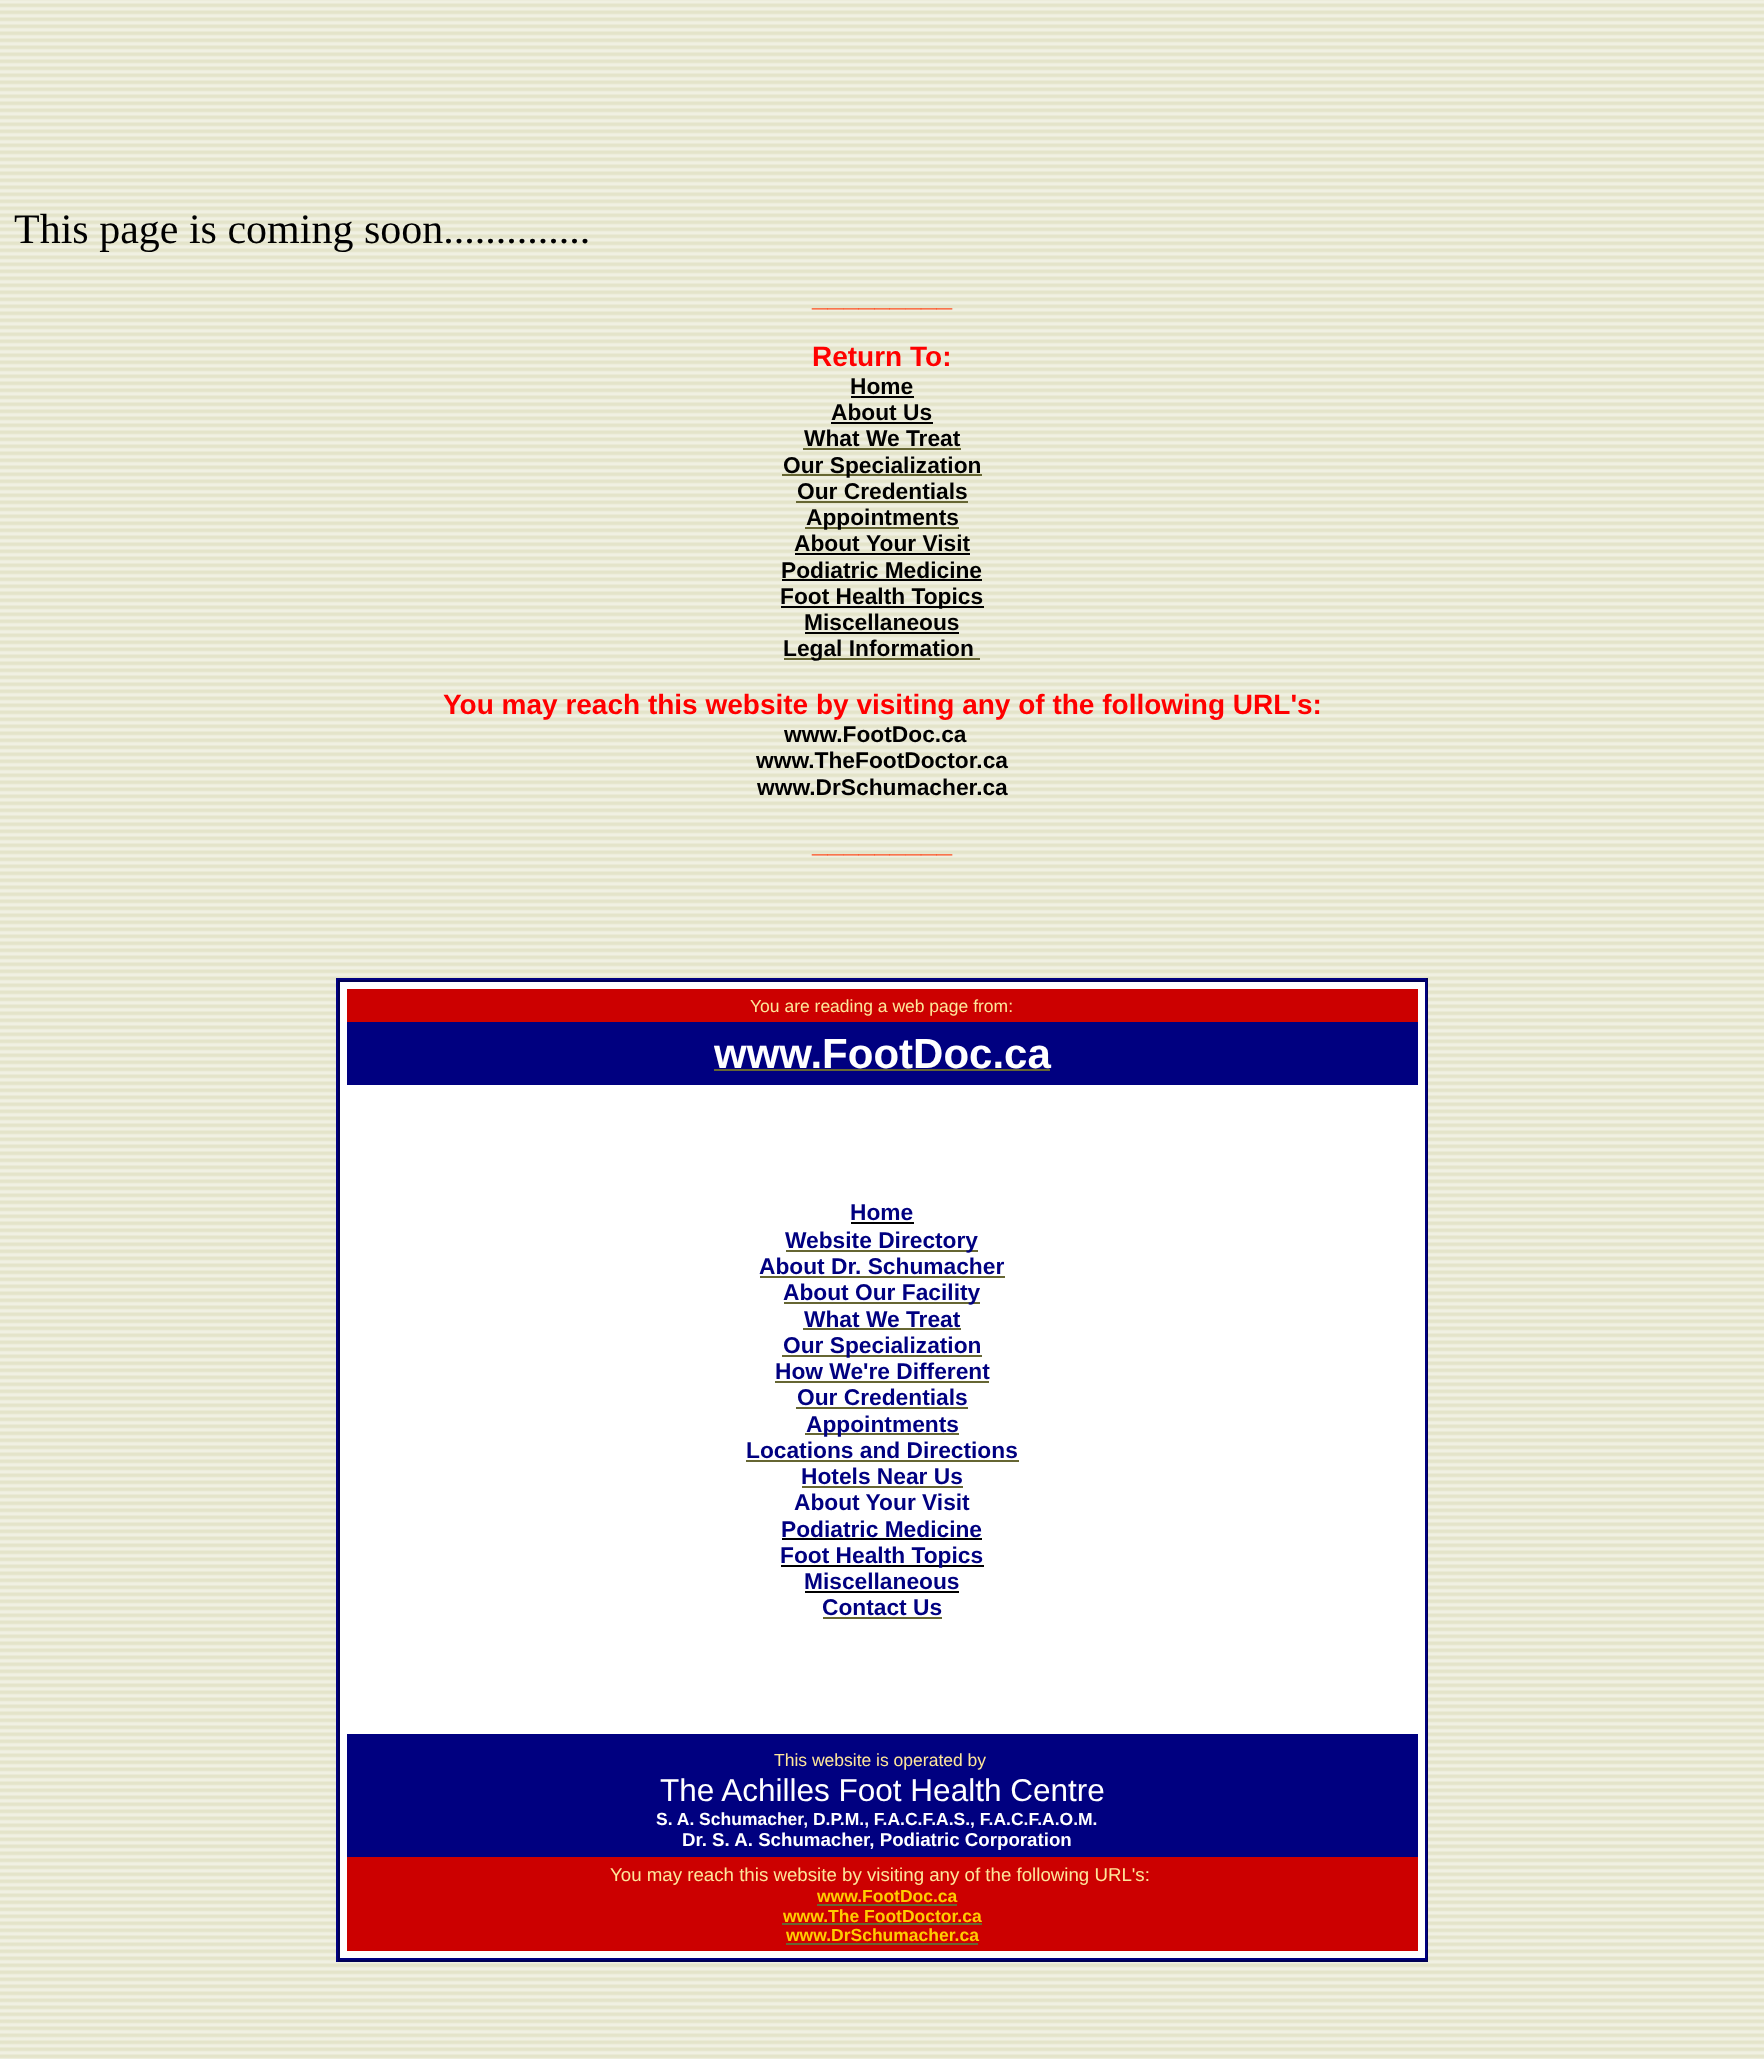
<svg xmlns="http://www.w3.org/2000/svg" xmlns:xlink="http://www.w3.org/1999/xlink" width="1764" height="2059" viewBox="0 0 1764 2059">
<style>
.cls-1{font:42px Liberation Serif;fill:#000000}
.cls-2{font:bold 28px Liberation Sans;fill:#ff3300}
.cls-3{font:bold 28px Liberation Sans;fill:#ff0000}
.cls-4{font:bold 22.75px Liberation Sans;fill:#000000}
.cls-5{font:17.5px Liberation Sans;fill:#fee69a}
.cls-6{font:bold 42px Liberation Sans;fill:#ffffff}
.cls-7{font:bold 22.75px Liberation Sans;fill:#000080}
.cls-8{font:31.5px Liberation Sans;fill:#ffffff}
.cls-9{font:bold 17.5px Liberation Sans;fill:#ffffff}
.cls-10{font:bold 18.7px Liberation Sans;fill:#ffffff}
.cls-11{font:18.7px Liberation Sans;fill:#fee69a}
.cls-12{font:bold 17.5px Liberation Sans;fill:#ffcc00}
</style>
<rect width="100%" height="100%" fill="#ffffff"/>
<image xlink:href="image0.png" x="0" y="0" width="1764" height="2059"/>
<rect fill="#000000" x="851" y="396" width="63" height="2"/>
<rect fill="#000000" x="831" y="422" width="102" height="2"/>
<rect fill="#666633" x="803" y="448" width="158" height="2"/>
<rect fill="#666633" x="782" y="474" width="200" height="2"/>
<rect fill="#666633" x="796" y="501" width="172" height="2"/>
<rect fill="#666633" x="805" y="527" width="154" height="2"/>
<rect fill="#000000" x="795" y="553" width="175" height="2"/>
<rect fill="#000000" x="782" y="579" width="200" height="2"/>
<rect fill="#000000" x="781" y="606" width="203" height="2"/>
<rect fill="#000000" x="805" y="632" width="154" height="2"/>
<rect fill="#666633" x="784" y="658" width="196" height="2"/>
<rect fill="#000080" x="336" y="978" width="1092" height="2"/>
<rect fill="#000055" x="1426" y="978" width="2" height="984"/>
<rect fill="#000055" x="336" y="1960" width="1092" height="2"/>
<rect fill="#000080" x="336" y="978" width="2" height="984"/>
<rect fill="#ffffff" x="340" y="982" width="1085" height="976"/>
<rect fill="#000055" x="338" y="980" width="1088" height="2"/>
<rect fill="#000080" x="1425" y="980" width="2" height="980"/>
<rect fill="#000080" x="338" y="1958" width="1088" height="2"/>
<rect fill="#000055" x="338" y="980" width="2" height="980"/>
<rect fill="#cc0000" x="347" y="989" width="1071" height="33"/>
<rect fill="#000080" x="347" y="1022" width="1071" height="63"/>
<rect fill="#666633" x="714" y="1069" width="336" height="2"/>
<rect fill="#000000" x="851" y="1222" width="63" height="2"/>
<rect fill="#666633" x="786" y="1250" width="192" height="2"/>
<rect fill="#666633" x="760" y="1276" width="245" height="2"/>
<rect fill="#666633" x="784" y="1302" width="196" height="2"/>
<rect fill="#666633" x="803" y="1328" width="158" height="2"/>
<rect fill="#666633" x="782" y="1355" width="200" height="2"/>
<rect fill="#666633" x="775" y="1381" width="214" height="2"/>
<rect fill="#666633" x="796" y="1407" width="172" height="2"/>
<rect fill="#666633" x="805" y="1433" width="154" height="2"/>
<rect fill="#666633" x="746" y="1460" width="273" height="2"/>
<rect fill="#666633" x="802" y="1486" width="161" height="2"/>
<rect fill="#000000" x="782" y="1538" width="200" height="2"/>
<rect fill="#000000" x="781" y="1565" width="203" height="2"/>
<rect fill="#000000" x="805" y="1591" width="154" height="2"/>
<rect fill="#666633" x="823" y="1617" width="119" height="2"/>
<rect fill="#000080" x="347" y="1734" width="1071" height="123"/>
<rect fill="#cc0000" x="347" y="1857" width="1071" height="94"/>
<rect fill="#666633" x="817" y="1904" width="140" height="2"/>
<rect fill="#666633" x="782" y="1923" width="200" height="2"/>
<rect fill="#666633" x="786" y="1943" width="192" height="2"/>
<text class="cls-1" x="14" y="243">This page is coming soon..............</text>
<text class="cls-2" x="812" y="306">_________</text>
<text class="cls-3" x="812" y="366">Return To:</text>
<text class="cls-4" x="850" y="394">Home</text>
<text class="cls-4" x="831" y="420">About Us</text>
<text class="cls-4" x="804" y="446">What We Treat</text>
<text class="cls-4" x="783" y="473">Our Specialization</text>
<text class="cls-4" x="797" y="499">Our Credentials</text>
<text class="cls-4" x="806" y="525">Appointments</text>
<text class="cls-4" x="794" y="551">About</text>
<text class="cls-4" x="866" y="551">Your Visit</text>
<text class="cls-4" x="781" y="578">Podiatric Medicine</text>
<text class="cls-4" x="780" y="604">Foot Health Topics</text>
<text class="cls-4" x="804" y="630">Miscellaneous</text>
<text class="cls-4" x="783" y="656">Legal Information</text>
<text class="cls-3" x="443" y="714">You may reach this website by visiting any of the following URL's:</text>
<text class="cls-4" x="784" y="742">www.FootDoc.ca</text>
<text class="cls-4" x="756" y="768">www.TheFootDoctor.ca</text>
<text class="cls-4" x="757" y="795">www.DrSchumacher.ca</text>
<text class="cls-2" x="812" y="852">_________</text>
<text class="cls-5" x="750" y="1012">You are reading a web page from:</text>
<text class="cls-6" x="714" y="1068">www.FootDoc.ca</text>
<text class="cls-7" x="850" y="1220">Home</text>
<text class="cls-7" x="785" y="1248">Website Directory</text>
<text class="cls-7" x="759" y="1274">About Dr. Schumacher</text>
<text class="cls-7" x="783" y="1300">About Our Facility</text>
<text class="cls-7" x="804" y="1327">What We Treat</text>
<text class="cls-7" x="783" y="1353">Our Specialization</text>
<text class="cls-7" x="775" y="1379">How We're Different</text>
<text class="cls-7" x="797" y="1405">Our Credentials</text>
<text class="cls-7" x="806" y="1432">Appointments</text>
<text class="cls-7" x="746" y="1458">Locations and Directions</text>
<text class="cls-7" x="801" y="1484">Hotels Near Us</text>
<text class="cls-7" x="794" y="1510">About Your Visit</text>
<text class="cls-7" x="781" y="1537">Podiatric Medicine</text>
<text class="cls-7" x="780" y="1563">Foot Health Topics</text>
<text class="cls-7" x="804" y="1589">Miscellaneous</text>
<text class="cls-7" x="822" y="1615">Contact Us</text>
<text class="cls-5" x="774" y="1766">This website is operated by</text>
<text class="cls-8" x="660" y="1801">The Achilles Foot Health Centre</text>
<text class="cls-9" x="656" y="1825">S. A. Schumacher, D.P.M., F.A.C.F.A.S., F.A.C.F.A.O.M.</text>
<text class="cls-10" x="682" y="1846">Dr. S. A. Schumacher, Podiatric Corporation</text>
<text class="cls-11" x="610" y="1881">You may reach this website by visiting any of the following URL's:</text>
<text class="cls-12" x="817" y="1902">www.FootDoc.ca</text>
<text class="cls-12" x="783" y="1922">www.The FootDoctor.ca</text>
<text class="cls-12" x="786" y="1941">www.DrSchumacher.ca</text>
</svg>
